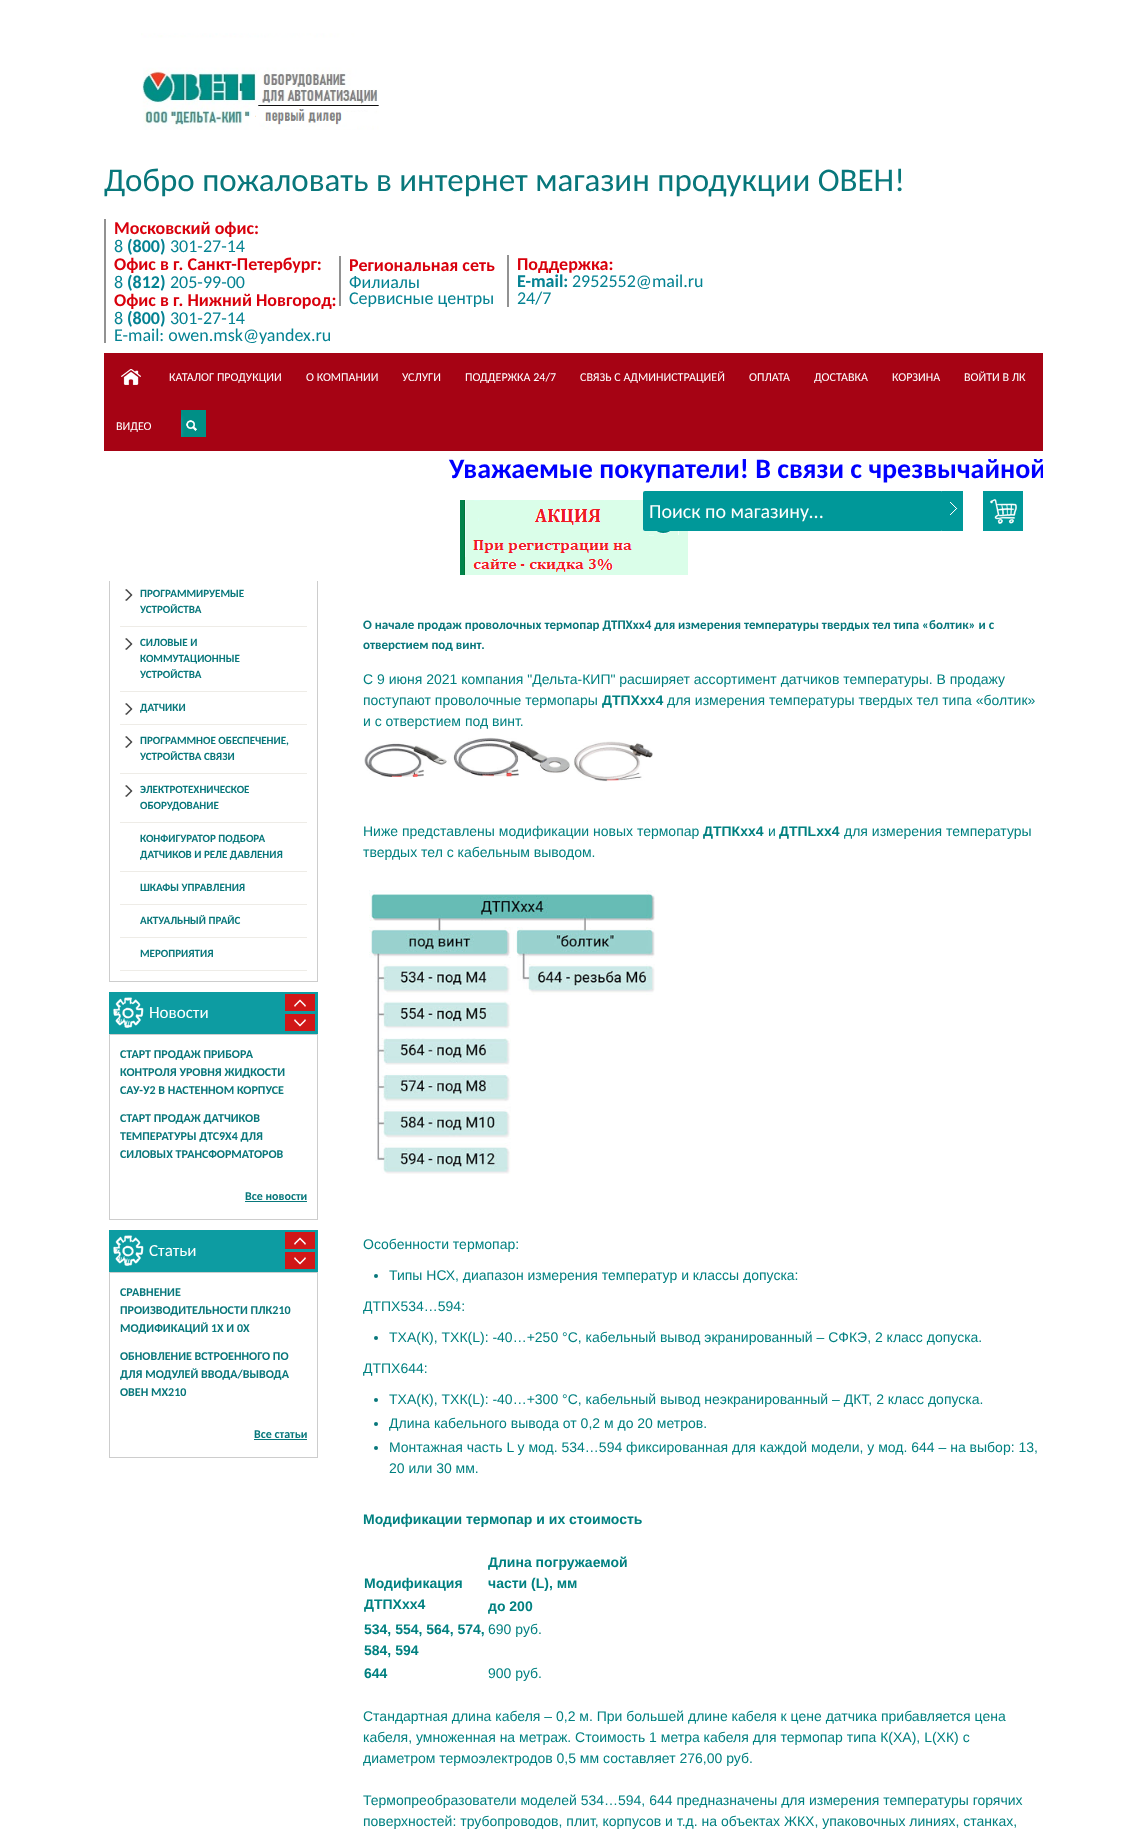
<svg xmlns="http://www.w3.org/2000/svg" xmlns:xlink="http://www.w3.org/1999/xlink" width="1147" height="1839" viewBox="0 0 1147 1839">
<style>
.cls-1{font:33px Carlito;fill:#08777b}
.cls-2{font:bold 18px Carlito;fill:#d8000c}
.cls-3{font:18px Carlito;fill:#048292}
.cls-4{font:bold 18px Carlito;fill:#048292}
.cls-5{font:12px Carlito;fill:#ffffff}
.cls-6{font:bold 28px Carlito;fill:#0000ff}
.cls-7{font:20px Carlito;fill:#ffffff}
.cls-8{font:bold 11px Carlito;fill:#08777b}
.cls-9{font:17px Carlito;fill:#ffffff}
.cls-10{font:bold 12px Carlito;fill:#08777b}
.cls-11{font:bold 13px Carlito;fill:#08777b}
.cls-12{font:14px Liberation Sans;fill:#008080}
.cls-13{font:bold 14px Liberation Sans;fill:#008080}
</style>
<defs>
<clipPath id="clip1"><rect x="104" y="451" width="939" height="35"/></clipPath>
</defs>
<rect width="100%" height="100%" fill="#ffffff"/>
<image xlink:href="image0.png" x="141" y="33" width="238" height="97"/>
<rect fill="#929292" x="104" y="219" width="2" height="124"/>
<rect fill="#929292" x="339" y="256" width="2" height="50"/>
<rect fill="#929292" x="507" y="255" width="2" height="52"/>
<rect fill="#a60314" x="104" y="353" width="939" height="98"/>
<image xlink:href="image1.png" x="121" y="369" width="20" height="16"/>
<image xlink:href="image2.png" x="181" y="410" width="25" height="27"/>
<rect fill="none" stroke="#cdcdcd" x="109.5" y="518.5" width="208" height="463"/>
<rect fill="#ffffff" x="109" y="518" width="209" height="63"/>
<image xlink:href="image3.png" x="460" y="500" width="228" height="75"/>
<rect fill="#ffffff" x="643" y="500" width="45" height="31"/>
<rect fill="#009899" x="643" y="491" width="300" height="40" rx="2"/>
<rect fill="#009899" x="942" y="491" width="21" height="40"/>
<image xlink:href="image4.png" x="950" y="502" width="8" height="13"/>
<rect fill="#009899" x="983" y="491" width="40" height="40"/>
<image xlink:href="image5.png" x="990" y="499" width="27" height="25"/>
<image xlink:href="image6.png" x="125" y="589" width="8" height="12"/>
<rect fill="#eeece7" x="120" y="626" width="187" height="1"/>
<image xlink:href="image6.png" x="125" y="638" width="8" height="12"/>
<rect fill="#eeece7" x="120" y="691" width="187" height="1"/>
<image xlink:href="image6.png" x="125" y="703" width="8" height="12"/>
<rect fill="#eeece7" x="120" y="724" width="187" height="1"/>
<image xlink:href="image6.png" x="125" y="736" width="8" height="12"/>
<rect fill="#eeece7" x="120" y="773" width="187" height="1"/>
<image xlink:href="image6.png" x="125" y="785" width="8" height="12"/>
<rect fill="#eeece7" x="120" y="822" width="187" height="1"/>
<rect fill="#eeece7" x="120" y="871" width="187" height="1"/>
<rect fill="#eeece7" x="120" y="904" width="187" height="1"/>
<rect fill="#eeece7" x="120" y="937" width="187" height="1"/>
<rect fill="#eeece7" x="120" y="970" width="187" height="1"/>
<rect fill="#0d9ca2" x="109" y="992" width="209" height="42"/>
<image xlink:href="image7.png" x="113" y="997" width="31" height="31"/>
<rect fill="none" stroke="#cdcdcd" x="109.5" y="1034.5" width="208" height="185"/>
<rect fill="#d11717" x="285" y="994" width="30" height="17"/>
<image xlink:href="image8.png" x="294" y="999" width="12" height="8"/>
<rect fill="#d11717" x="285" y="1014" width="30" height="17"/>
<image xlink:href="image9.png" x="294" y="1019" width="12" height="8"/>
<rect fill="#08777b" x="245" y="1201" width="62" height="1"/>
<rect fill="#0d9ca2" x="109" y="1230" width="209" height="42"/>
<image xlink:href="image7.png" x="113" y="1235" width="31" height="31"/>
<rect fill="none" stroke="#cdcdcd" x="109.5" y="1272.5" width="208" height="185"/>
<rect fill="#d11717" x="285" y="1232" width="30" height="17"/>
<image xlink:href="image8.png" x="294" y="1237" width="12" height="8"/>
<rect fill="#d11717" x="285" y="1252" width="30" height="17"/>
<image xlink:href="image9.png" x="294" y="1257" width="12" height="8"/>
<rect fill="#08777b" x="254" y="1439" width="53" height="1"/>
<image xlink:href="image10.png" x="364" y="737" width="289" height="45"/>
<image xlink:href="image11.png" x="369" y="890" width="286" height="284"/>
<circle fill="#08777b" cx="376" cy="1276" r="2"/>
<circle fill="#08777b" cx="376" cy="1338" r="2"/>
<circle fill="#08777b" cx="376" cy="1400" r="2"/>
<circle fill="#08777b" cx="376" cy="1424" r="2"/>
<circle fill="#08777b" cx="376" cy="1448" r="2"/>
<text class="cls-1" x="104" y="191">Добро пожаловать в интернет магазин продукции ОВЕН!</text>
<text class="cls-2" x="114" y="234">Московский офис:</text>
<text class="cls-3" x="114" y="252">8</text>
<text class="cls-4" x="127" y="252">(800)</text>
<text class="cls-3" x="170" y="252">301-27-14</text>
<text class="cls-2" x="114" y="270">Офис в г. Санкт-Петербург:</text>
<text class="cls-3" x="114" y="288">8</text>
<text class="cls-4" x="127" y="288">(812)</text>
<text class="cls-3" x="170" y="288">205-99-00</text>
<text class="cls-2" x="114" y="306">Офис в г. Нижний Новгород:</text>
<text class="cls-3" x="114" y="324">8</text>
<text class="cls-4" x="127" y="324">(800)</text>
<text class="cls-3" x="170" y="324">301-27-14</text>
<text class="cls-3" x="114" y="341">E-mail: owen.msk@yandex.ru</text>
<text class="cls-2" x="349" y="271">Региональная сеть</text>
<text class="cls-3"><tspan x="349" y="288">Филиалы</tspan><tspan x="349" y="304">Сервисные центры</tspan></text>
<text class="cls-2" x="517" y="270">Поддержка:</text>
<text class="cls-4" x="517" y="287">E-mail:</text>
<text class="cls-3" x="572" y="287">2952552@mail.ru</text>
<text class="cls-3" x="517" y="304">24/7</text>
<text class="cls-5" x="169" y="381">КАТАЛОГ ПРОДУКЦИИ</text>
<text class="cls-5" x="306" y="381">О КОМПАНИИ</text>
<text class="cls-5" x="402" y="381">УСЛУГИ</text>
<text class="cls-5" x="465" y="381">ПОДДЕРЖКА 24/7</text>
<text class="cls-5" x="580" y="381">СВЯЗЬ С АДМИНИСТРАЦИЕЙ</text>
<text class="cls-5" x="749" y="381">ОПЛАТА</text>
<text class="cls-5" x="814" y="381">ДОСТАВКА</text>
<text class="cls-5" x="892" y="381">КОРЗИНА</text>
<text class="cls-5" x="964" y="381">ВОЙТИ В ЛК</text>
<text class="cls-5" x="116" y="430">ВИДЕО</text>
<g clip-path="url(#clip1)">
<text class="cls-6" x="449" y="478">Уважаемые покупатели! В связи с чрезвычайной</text>
</g>
<text class="cls-7" x="649" y="518">Поиск по магазину...</text>
<text class="cls-8"><tspan x="140" y="597">ПРОГРАММИРУЕМЫЕ</tspan><tspan x="140" y="613">УСТРОЙСТВА</tspan></text>
<text class="cls-8"><tspan x="140" y="646">СИЛОВЫЕ И</tspan><tspan x="140" y="662">КОММУТАЦИОННЫЕ</tspan><tspan x="140" y="678">УСТРОЙСТВА</tspan></text>
<text class="cls-8" x="140" y="711">ДАТЧИКИ</text>
<text class="cls-8"><tspan x="140" y="744">ПРОГРАММНОЕ ОБЕСПЕЧЕНИЕ,</tspan><tspan x="140" y="760">УСТРОЙСТВА СВЯЗИ</tspan></text>
<text class="cls-8"><tspan x="140" y="793">ЭЛЕКТРОТЕХНИЧЕСКОЕ</tspan><tspan x="140" y="809">ОБОРУДОВАНИЕ</tspan></text>
<text class="cls-8"><tspan x="140" y="842">КОНФИГУРАТОР ПОДБОРА</tspan><tspan x="140" y="858">ДАТЧИКОВ И РЕЛЕ ДАВЛЕНИЯ</tspan></text>
<text class="cls-8" x="140" y="891">ШКАФЫ УПРАВЛЕНИЯ</text>
<text class="cls-8" x="140" y="924">АКТУАЛЬНЫЙ ПРАЙС</text>
<text class="cls-8" x="140" y="957">МЕРОПРИЯТИЯ</text>
<text class="cls-9" x="149" y="1018">Новости</text>
<text class="cls-10"><tspan x="120" y="1058">СТАРТ ПРОДАЖ ПРИБОРА</tspan><tspan x="120" y="1076">КОНТРОЛЯ УРОВНЯ ЖИДКОСТИ</tspan><tspan x="120" y="1094">САУ-У2 В НАСТЕННОМ КОРПУСЕ</tspan></text>
<text class="cls-10"><tspan x="120" y="1122">СТАРТ ПРОДАЖ ДАТЧИКОВ</tspan><tspan x="120" y="1140">ТЕМПЕРАТУРЫ ДТС9Х4 ДЛЯ</tspan><tspan x="120" y="1158">СИЛОВЫХ ТРАНСФОРМАТОРОВ</tspan></text>
<text class="cls-10" x="245" y="1200">Все новости</text>
<text class="cls-9" x="149" y="1256">Статьи</text>
<text class="cls-10"><tspan x="120" y="1296">СРАВНЕНИЕ</tspan><tspan x="120" y="1314">ПРОИЗВОДИТЕЛЬНОСТИ ПЛК210</tspan><tspan x="120" y="1332">МОДИФИКАЦИЙ 1Х И 0Х</tspan></text>
<text class="cls-10"><tspan x="120" y="1360">ОБНОВЛЕНИЕ ВСТРОЕННОГО ПО</tspan><tspan x="120" y="1378">ДЛЯ МОДУЛЕЙ ВВОДА/ВЫВОДА</tspan><tspan x="120" y="1396">ОВЕН МХ210</tspan></text>
<text class="cls-10" x="254" y="1438">Все статьи</text>
<text class="cls-11"><tspan x="363" y="629">О начале продаж проволочных термопар ДТПХхх4 для измерения температуры твердых тел типа «болтик» и с</tspan><tspan x="363" y="649">отверстием под винт.</tspan></text>
<text class="cls-12"><tspan x="363" y="684">С 9 июня 2021 компания "Дельта-КИП" расширяет ассортимент датчиков температуры. В продажу</tspan><tspan x="363" y="705">поступают проволочные термопары</tspan></text>
<text class="cls-13" x="602" y="705">ДТПХхх4</text>
<text class="cls-12" x="667" y="705">для измерения температуры твердых тел типа «болтик»</text>
<text class="cls-12" x="363" y="726">и с отверстием под винт.</text>
<text class="cls-12" x="363" y="836">Ниже представлены модификации новых термопар</text>
<text class="cls-13" x="703" y="836">ДТПКхх4</text>
<text class="cls-12" x="768" y="836">и</text>
<text class="cls-13" x="779" y="836">ДТПLхх4</text>
<text class="cls-12" x="844" y="836">для измерения температуры</text>
<text class="cls-12" x="363" y="857">твердых тел с кабельным выводом.</text>
<text class="cls-12" x="363" y="1249">Особенности термопар:</text>
<text class="cls-12" x="389" y="1280">Типы НСХ, диапазон измерения температур и классы допуска:</text>
<text class="cls-12" x="363" y="1311">ДТПХ534…594:</text>
<text class="cls-12" x="389" y="1342">ТХА(К), ТХК(L): -40…+250 °С, кабельный вывод экранированный – СФКЭ, 2 класс допуска.</text>
<text class="cls-12" x="363" y="1373">ДТПХ644:</text>
<text class="cls-12"><tspan x="389" y="1404">ТХА(К), ТХК(L): -40…+300 °С, кабельный вывод неэкранированный – ДКТ, 2 класс допуска.</tspan><tspan x="389" y="1428">Длина кабельного вывода от 0,2 м до 20 метров.</tspan><tspan x="389" y="1452">Монтажная часть L у мод. 534…594 фиксированная для каждой модели, у мод. 644 – на выбор: 13,</tspan><tspan x="389" y="1473">20 или 30 мм.</tspan></text>
<text class="cls-13" x="363" y="1524">Модификации термопар и их стоимость</text>
<text class="cls-13"><tspan x="488" y="1567">Длина погружаемой</tspan><tspan x="488" y="1588">части (L), мм</tspan></text>
<text class="cls-13"><tspan x="364" y="1588">Модификация</tspan><tspan x="364" y="1609">ДТПХхх4</tspan></text>
<text class="cls-13" x="488" y="1611">до 200</text>
<text class="cls-13"><tspan x="364" y="1634">534, 554, 564, 574,</tspan><tspan x="364" y="1655">584, 594</tspan></text>
<text class="cls-12" x="488" y="1634">690 руб.</text>
<text class="cls-13" x="364" y="1678">644</text>
<text class="cls-12" x="488" y="1678">900 руб.</text>
<text class="cls-12"><tspan x="363" y="1721">Стандартная длина кабеля – 0,2 м. При большей длине кабеля к цене датчика прибавляется цена</tspan><tspan x="363" y="1742">кабеля, умноженная на метраж. Стоимость 1 метра кабеля для термопар типа К(ХА), L(ХК) с</tspan><tspan x="363" y="1763">диаметром термоэлектродов 0,5 мм составляет 276,00 руб.</tspan></text>
<text class="cls-12"><tspan x="363" y="1805">Термопреобразователи моделей 534…594, 644 предназначены для измерения температуры горячих</tspan><tspan x="363" y="1826">поверхностей: трубопроводов, плит, корпусов и т.д. на объектах ЖКХ, упаковочных линиях, станках,</tspan></text>
</svg>
